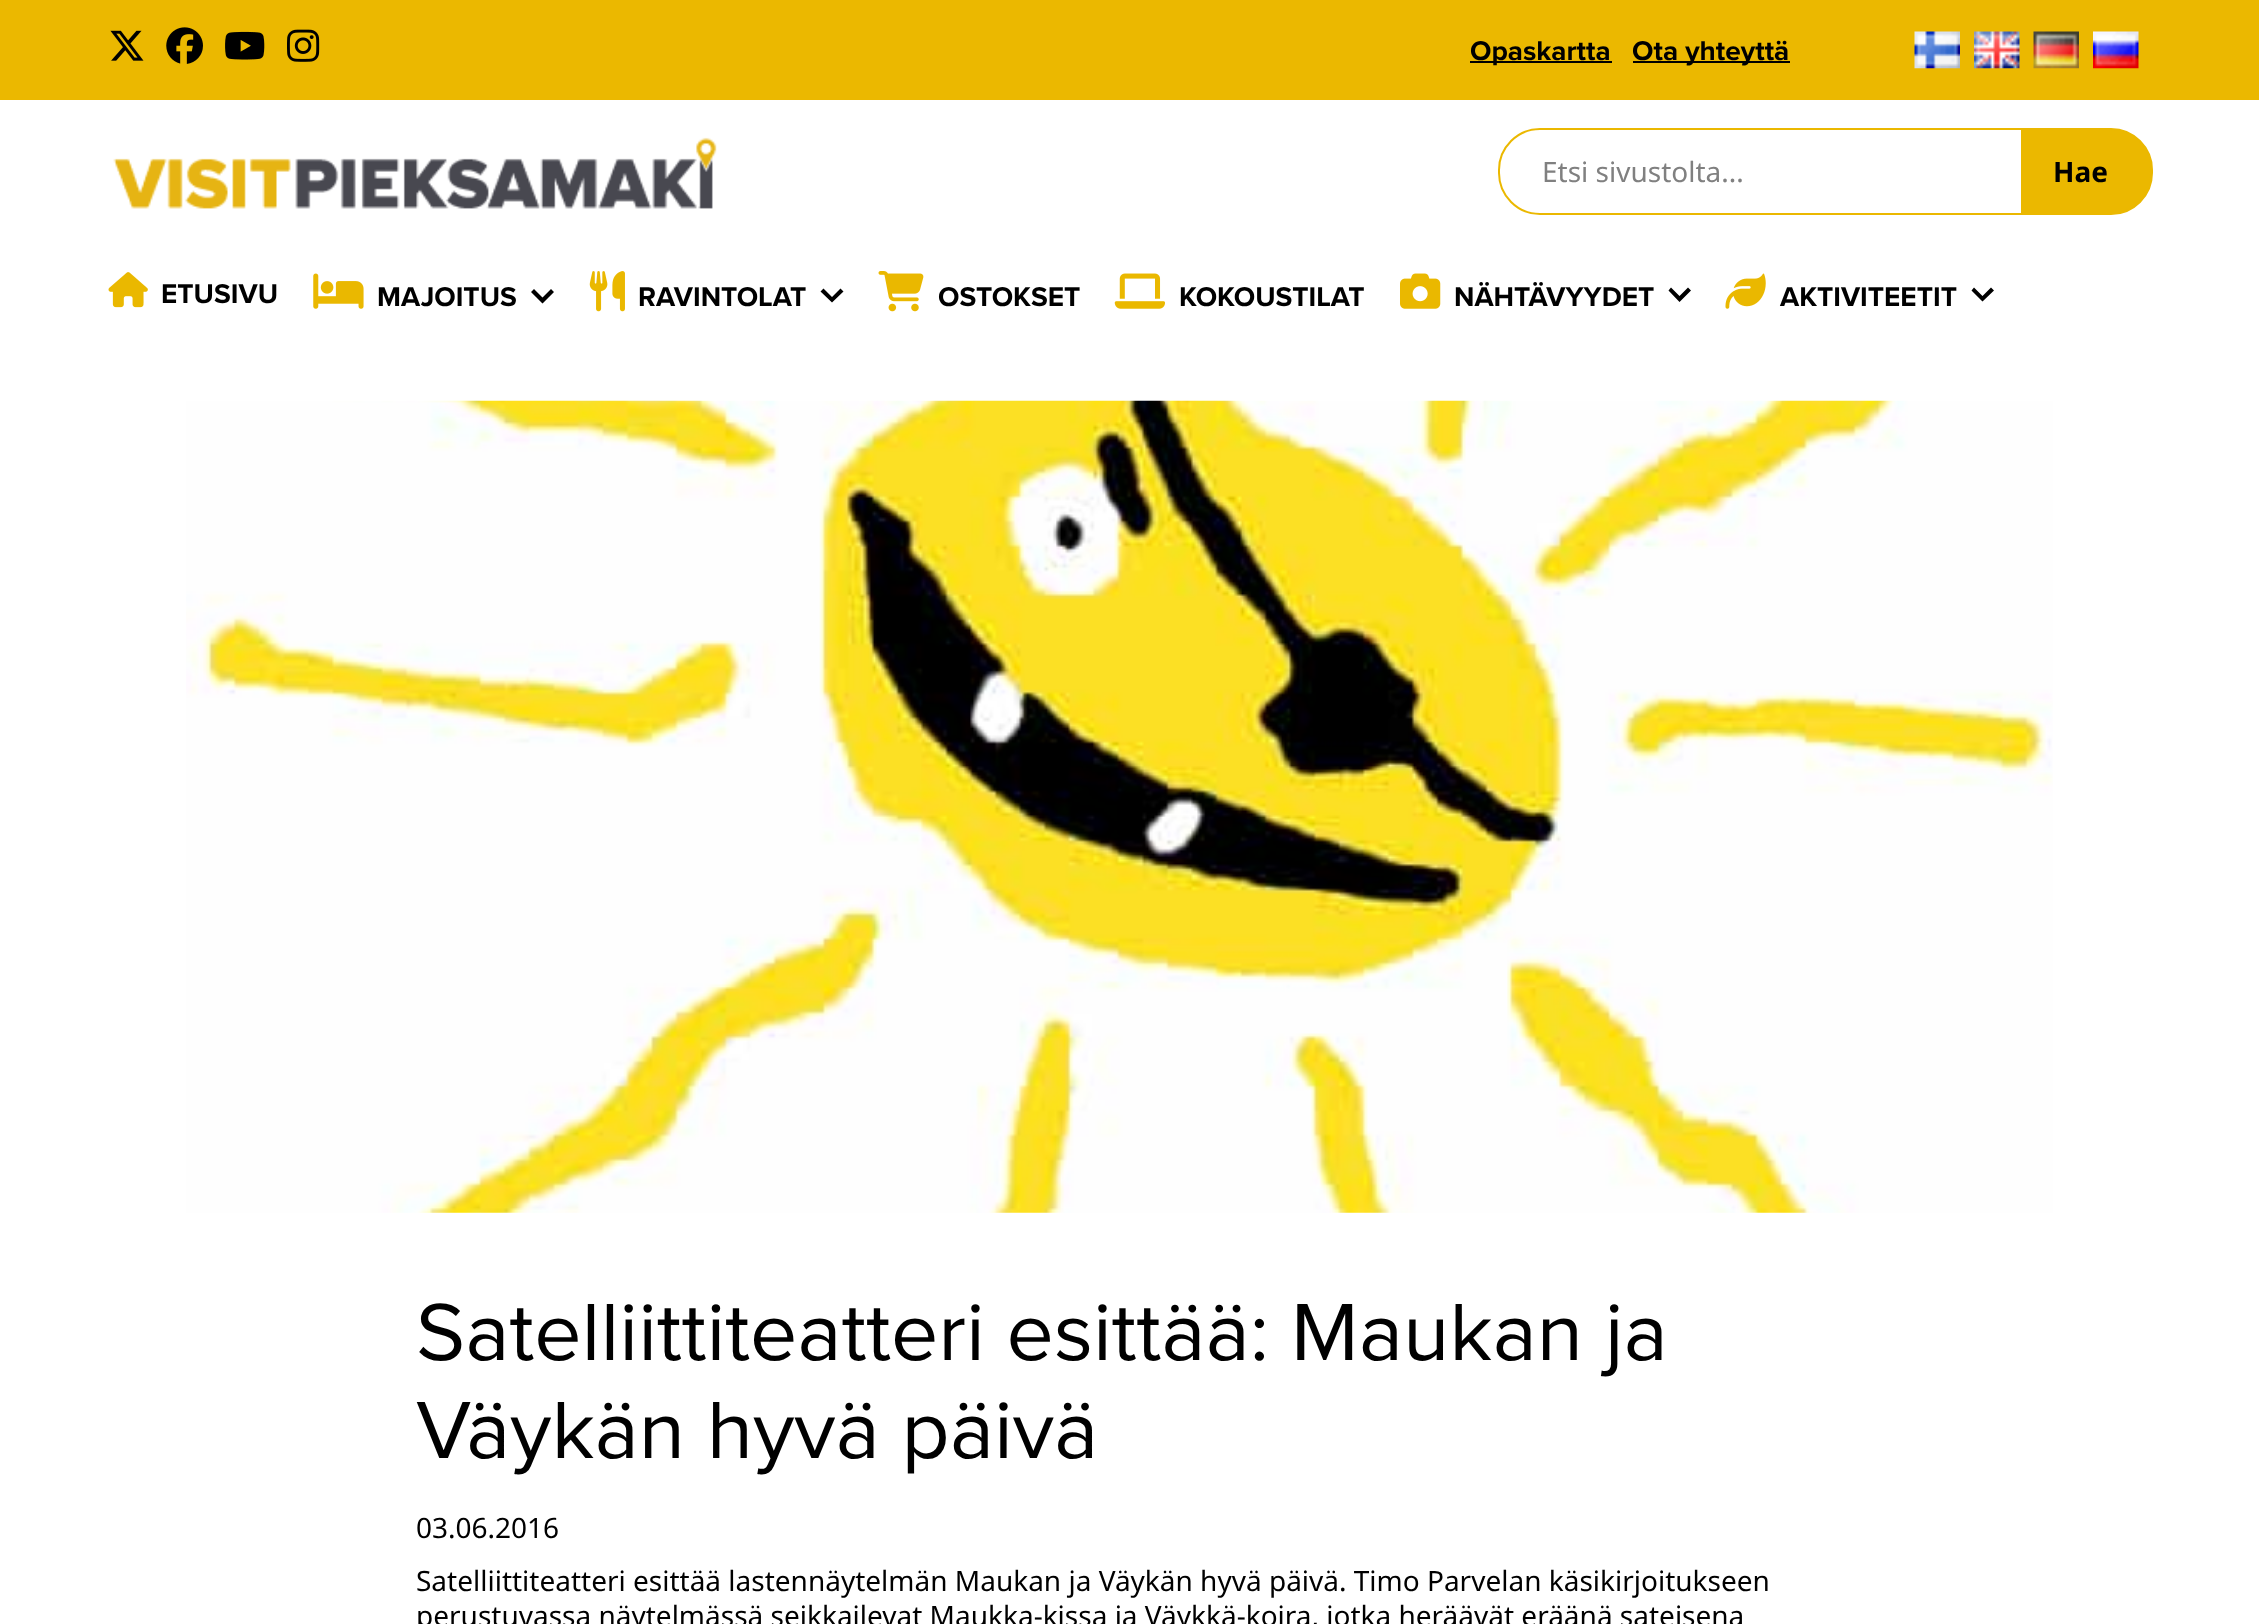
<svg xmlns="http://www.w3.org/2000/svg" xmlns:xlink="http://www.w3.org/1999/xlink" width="2259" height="1624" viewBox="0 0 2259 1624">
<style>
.cls-1{font:bold 28px Proxima Nova;fill:#000000}
.cls-2{font:28px Noto Sans;fill:#808080}
.cls-3{font:bold 28px Noto Sans;fill:#000000}
.cls-4{font:84px Proxima Nova;fill:#000000}
.cls-5{font:28px Noto Sans;fill:#000000}
</style>
<rect width="100%" height="100%" fill="#ffffff"/>
<rect fill="#ebb800" x="0" y="0" width="2259" height="100"/>
<image xlink:href="image0.png" x="110" y="30" width="34" height="31"/>
<image xlink:href="image1.png" x="166" y="27" width="37" height="37"/>
<image xlink:href="image2.png" x="225" y="31" width="40" height="29"/>
<image xlink:href="image3.png" x="287" y="29" width="33" height="33"/>
<rect fill="#000000" x="1470" y="61" width="142" height="2"/>
<rect fill="#000000" x="1633" y="61" width="157" height="2"/>
<image xlink:href="image4.png" x="1914" y="31" width="46" height="38"/>
<image xlink:href="image5.png" x="1974" y="31" width="46" height="38"/>
<image xlink:href="image6.png" x="2033" y="31" width="46" height="38"/>
<image xlink:href="image7.png" x="2093" y="31" width="46" height="38"/>
<image xlink:href="image8.png" x="113" y="137" width="604" height="72"/>
<path fill="none" stroke="#ebb800" stroke-width="2" d="M1540 129H2022V214H1540C1517.5 214 1499 195.5 1499 173V170C1499 147.5 1517.5 129 1540 129Z"/>
<path fill="#ebb800" stroke="#ebb800" stroke-width="2" d="M2024 129H2111C2133.5 129 2152 147.5 2152 170V173C2152 195.5 2133.5 214 2111 214H2024Z"/>
<image xlink:href="image9.png" x="108" y="272" width="40" height="36"/>
<image xlink:href="image10.png" x="313" y="273" width="51" height="36"/>
<path fill="#000000" d="M551 289L554 292L542.5 303.5L531 292L534 289L542.5 297.5Z"/>
<image xlink:href="image11.png" x="589" y="271" width="36" height="41"/>
<path fill="#000000" d="M840.5 288.5L843.5 291.5L832 302.5L820.5 291.5L823.5 288.5L832 297Z"/>
<image xlink:href="image12.png" x="878" y="271" width="46" height="41"/>
<image xlink:href="image13.png" x="1114" y="273" width="51" height="36"/>
<image xlink:href="image14.png" x="1400" y="273" width="41" height="36"/>
<path fill="#000000" d="M1688 287.5L1691 290.5L1679.5 302L1668.5 290.5L1671 287.5L1679.5 296Z"/>
<image xlink:href="image15.png" x="1725" y="273" width="41" height="36"/>
<path fill="#000000" d="M1991 287.5L1994 290.5L1982.5 301.5L1971.5 290.5L1974 287.5L1982.5 296Z"/>
<image xlink:href="image16.png" x="186" y="400" width="1867" height="813"/>
<text class="cls-1" x="1470" y="60">Opaskartta</text>
<text class="cls-1" x="1632" y="60">Ota yhteyttä</text>
<text class="cls-2" x="1542" y="182">Etsi sivustolta...</text>
<text class="cls-3" x="2053" y="182">Hae</text>
<text class="cls-1" x="161" y="303">ETUSIVU</text>
<text class="cls-1" x="377" y="306">MAJOITUS</text>
<text class="cls-1" x="638" y="306">RAVINTOLAT</text>
<text class="cls-1" x="938" y="306">OSTOKSET</text>
<text class="cls-1" x="1179" y="306">KOKOUSTILAT</text>
<text class="cls-1" x="1454" y="306">NÄHTÄVYYDET</text>
<text class="cls-1" x="1780" y="306">AKTIVITEETIT</text>
<text class="cls-4"><tspan x="416" y="1360">Satelliittiteatteri esittää: Maukan ja</tspan><tspan x="416" y="1458">Väykän hyvä päivä</tspan></text>
<text class="cls-5"><tspan x="416" y="1538">03.06.2016</tspan><tspan x="416" y="1591">Satelliittiteatteri esittää lastennäytelmän Maukan ja Väykän hyvä päivä. Timo Parvelan käsikirjoitukseen</tspan><tspan x="416" y="1626">perustuvassa näytelmässä seikkailevat Maukka-kissa ja Väykkä-koira, jotka heräävät eräänä sateisena</tspan></text>
</svg>
